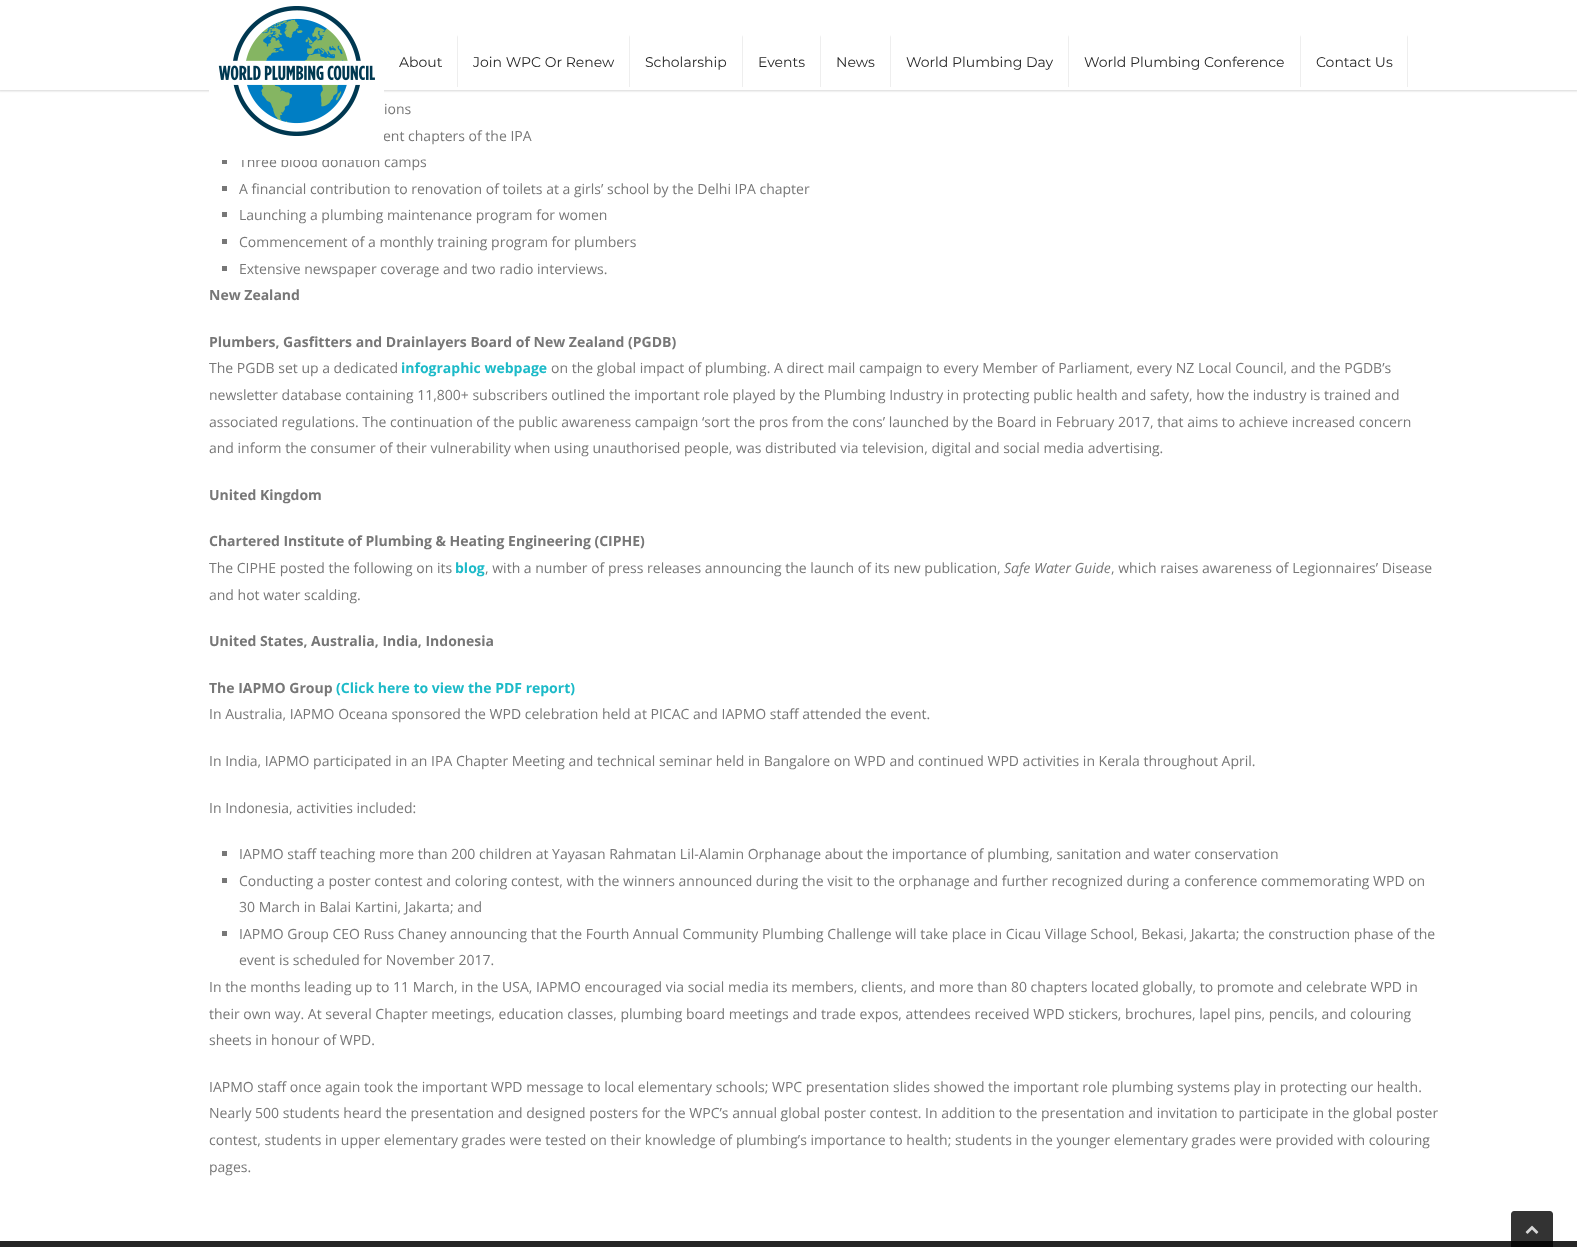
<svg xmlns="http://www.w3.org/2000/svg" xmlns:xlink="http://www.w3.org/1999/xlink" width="1577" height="1247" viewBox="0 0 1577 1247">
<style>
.cls-1{font:14px Montserrat;fill:#272727}
.cls-2{font:14px Open Sans;fill:#777777}
.cls-3{font:bold 14px Open Sans;fill:#777777}
.cls-4{font:bold 14px Open Sans;fill:#1cbac8}
.cls-5{font:italic 14px Open Sans;fill:#777777}
</style>
<rect width="100%" height="100%" fill="#ffffff"/>
<rect fill="#000000" fill-opacity="0.16" filter="blur(1px)" x="-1" y="-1" width="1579" height="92"/>
<rect fill="#ffffff" x="0" y="0" width="1577" height="90"/>
<path fill="#eeeeee" d="M458 35V87H457V37Z"/>
<path fill="#eeeeee" d="M630 35V87H629V37Z"/>
<path fill="#eeeeee" d="M743 35V87H742V37Z"/>
<path fill="#eeeeee" d="M821 35V87H820V37Z"/>
<path fill="#eeeeee" d="M891 35V87H890V37Z"/>
<path fill="#eeeeee" d="M1069 35V87H1068V37Z"/>
<path fill="#eeeeee" d="M1301 35V87H1300V37Z"/>
<path fill="#eeeeee" d="M1408 35V87H1407V37Z"/>
<rect fill="#777777" x="222" y="160" width="5" height="4"/>
<rect fill="#777777" x="222" y="186" width="5" height="5"/>
<rect fill="#777777" x="222" y="212" width="5" height="5"/>
<rect fill="#777777" x="222" y="239" width="5" height="5"/>
<rect fill="#777777" x="222" y="266" width="5" height="5"/>
<rect fill="#777777" x="222" y="851" width="5" height="5"/>
<rect fill="#777777" x="222" y="878" width="5" height="5"/>
<rect fill="#777777" x="222" y="931" width="5" height="5"/>
<rect fill="#262626" x="0" y="1241" width="1577" height="6"/>
<path fill="#000000" fill-opacity="0.8" d="M1514 1211H1550C1551.5 1211 1553 1212.5 1553 1214V1247H1511V1214C1511 1212.5 1512.5 1211 1514 1211Z"/>
<image xlink:href="image1.png" x="1525" y="1225" width="14" height="9"/>
<text class="cls-1" x="399" y="67">About</text>
<text class="cls-1" x="473" y="67">Join WPC Or Renew</text>
<text class="cls-1" x="645" y="67">Scholarship</text>
<text class="cls-1" x="758" y="67">Events</text>
<text class="cls-1" x="836" y="67">News</text>
<text class="cls-1" x="906" y="67">World Plumbing Day</text>
<text class="cls-1" x="1084" y="67">World Plumbing Conference</text>
<text class="cls-1" x="1316" y="67">Contact Us</text>
<text class="cls-2" x="384" y="114">ions</text>
<text class="cls-2" x="383" y="141">ent chapters of the IPA</text>
<text class="cls-2" x="239" y="167">Three blood donation camps</text>
<image xlink:href="image0.png" x="209" y="6" width="175" height="154"/>
<text class="cls-2"><tspan x="239" y="194">A financial contribution to renovation of toilets at a girls’ school by the Delhi IPA chapter</tspan><tspan x="239" y="220">Launching a plumbing maintenance program for women</tspan><tspan x="239" y="247">Commencement of a monthly training program for plumbers</tspan><tspan x="239" y="274">Extensive newspaper coverage and two radio interviews.</tspan></text>
<text class="cls-3" x="209" y="300">New Zealand</text>
<text class="cls-3" x="209" y="347">Plumbers, Gasfitters and Drainlayers Board of New Zealand (PGDB)</text>
<text class="cls-2" x="209" y="373">The PGDB set up a dedicated</text>
<text class="cls-4" x="401" y="373">infographic webpage</text>
<text class="cls-2" x="551" y="373">on the global impact of plumbing. A direct mail campaign to every Member of Parliament, every NZ Local Council, and the PGDB’s</text>
<text class="cls-2"><tspan x="209" y="400">newsletter database containing 11,800+ subscribers outlined the important role played by the Plumbing Industry in protecting public health and safety, how the industry is trained and</tspan><tspan x="209" y="427">associated regulations. The continuation of the public awareness campaign ‘sort the pros from the cons’ launched by the Board in February 2017, that aims to achieve increased concern</tspan><tspan x="209" y="453">and inform the consumer of their vulnerability when using unauthorised people, was distributed via television, digital and social media advertising.</tspan></text>
<text class="cls-3" x="209" y="500">United Kingdom</text>
<text class="cls-3" x="209" y="546">Chartered Institute of Plumbing &amp; Heating Engineering (CIPHE)</text>
<text class="cls-2" x="209" y="573">The CIPHE posted the following on its</text>
<text class="cls-4" x="455" y="573">blog</text>
<text class="cls-2" x="485" y="573">, with a number of press releases announcing the launch of its new publication,</text>
<text class="cls-5" x="1004" y="573">Safe Water Guide</text>
<text class="cls-2" x="1111" y="573">, which raises awareness of Legionnaires’ Disease</text>
<text class="cls-2" x="209" y="600">and hot water scalding.</text>
<text class="cls-3" x="209" y="646">United States, Australia, India, Indonesia</text>
<text class="cls-3" x="209" y="693">The IAPMO Group</text>
<text class="cls-4" x="336" y="693">(Click here to view the PDF report)</text>
<text class="cls-2" x="209" y="719">In Australia, IAPMO Oceana sponsored the WPD celebration held at PICAC and IAPMO staff attended the event.</text>
<text class="cls-2" x="209" y="766">In India, IAPMO participated in an IPA Chapter Meeting and technical seminar held in Bangalore on WPD and continued WPD activities in Kerala throughout April.</text>
<text class="cls-2" x="209" y="813">In Indonesia, activities included:</text>
<text class="cls-2"><tspan x="239" y="859">IAPMO staff teaching more than 200 children at Yayasan Rahmatan Lil-Alamin Orphanage about the importance of plumbing, sanitation and water conservation</tspan><tspan x="239" y="886">Conducting a poster contest and coloring contest, with the winners announced during the visit to the orphanage and further recognized during a conference commemorating WPD on</tspan><tspan x="239" y="912">30 March in Balai Kartini, Jakarta; and</tspan><tspan x="239" y="939">IAPMO Group CEO Russ Chaney announcing that the Fourth Annual Community Plumbing Challenge will take place in Cicau Village School, Bekasi, Jakarta; the construction phase of the</tspan><tspan x="239" y="965">event is scheduled for November 2017.</tspan></text>
<text class="cls-2"><tspan x="209" y="992">In the months leading up to 11 March, in the USA, IAPMO encouraged via social media its members, clients, and more than 80 chapters located globally, to promote and celebrate WPD in</tspan><tspan x="209" y="1019">their own way. At several Chapter meetings, education classes, plumbing board meetings and trade expos, attendees received WPD stickers, brochures, lapel pins, pencils, and colouring</tspan><tspan x="209" y="1045">sheets in honour of WPD.</tspan></text>
<text class="cls-2"><tspan x="209" y="1092">IAPMO staff once again took the important WPD message to local elementary schools; WPC presentation slides showed the important role plumbing systems play in protecting our health.</tspan><tspan x="209" y="1118">Nearly 500 students heard the presentation and designed posters for the WPC’s annual global poster contest. In addition to the presentation and invitation to participate in the global poster</tspan><tspan x="209" y="1145">contest, students in upper elementary grades were tested on their knowledge of plumbing’s importance to health; students in the younger elementary grades were provided with colouring</tspan><tspan x="209" y="1172">pages.</tspan></text>
</svg>
